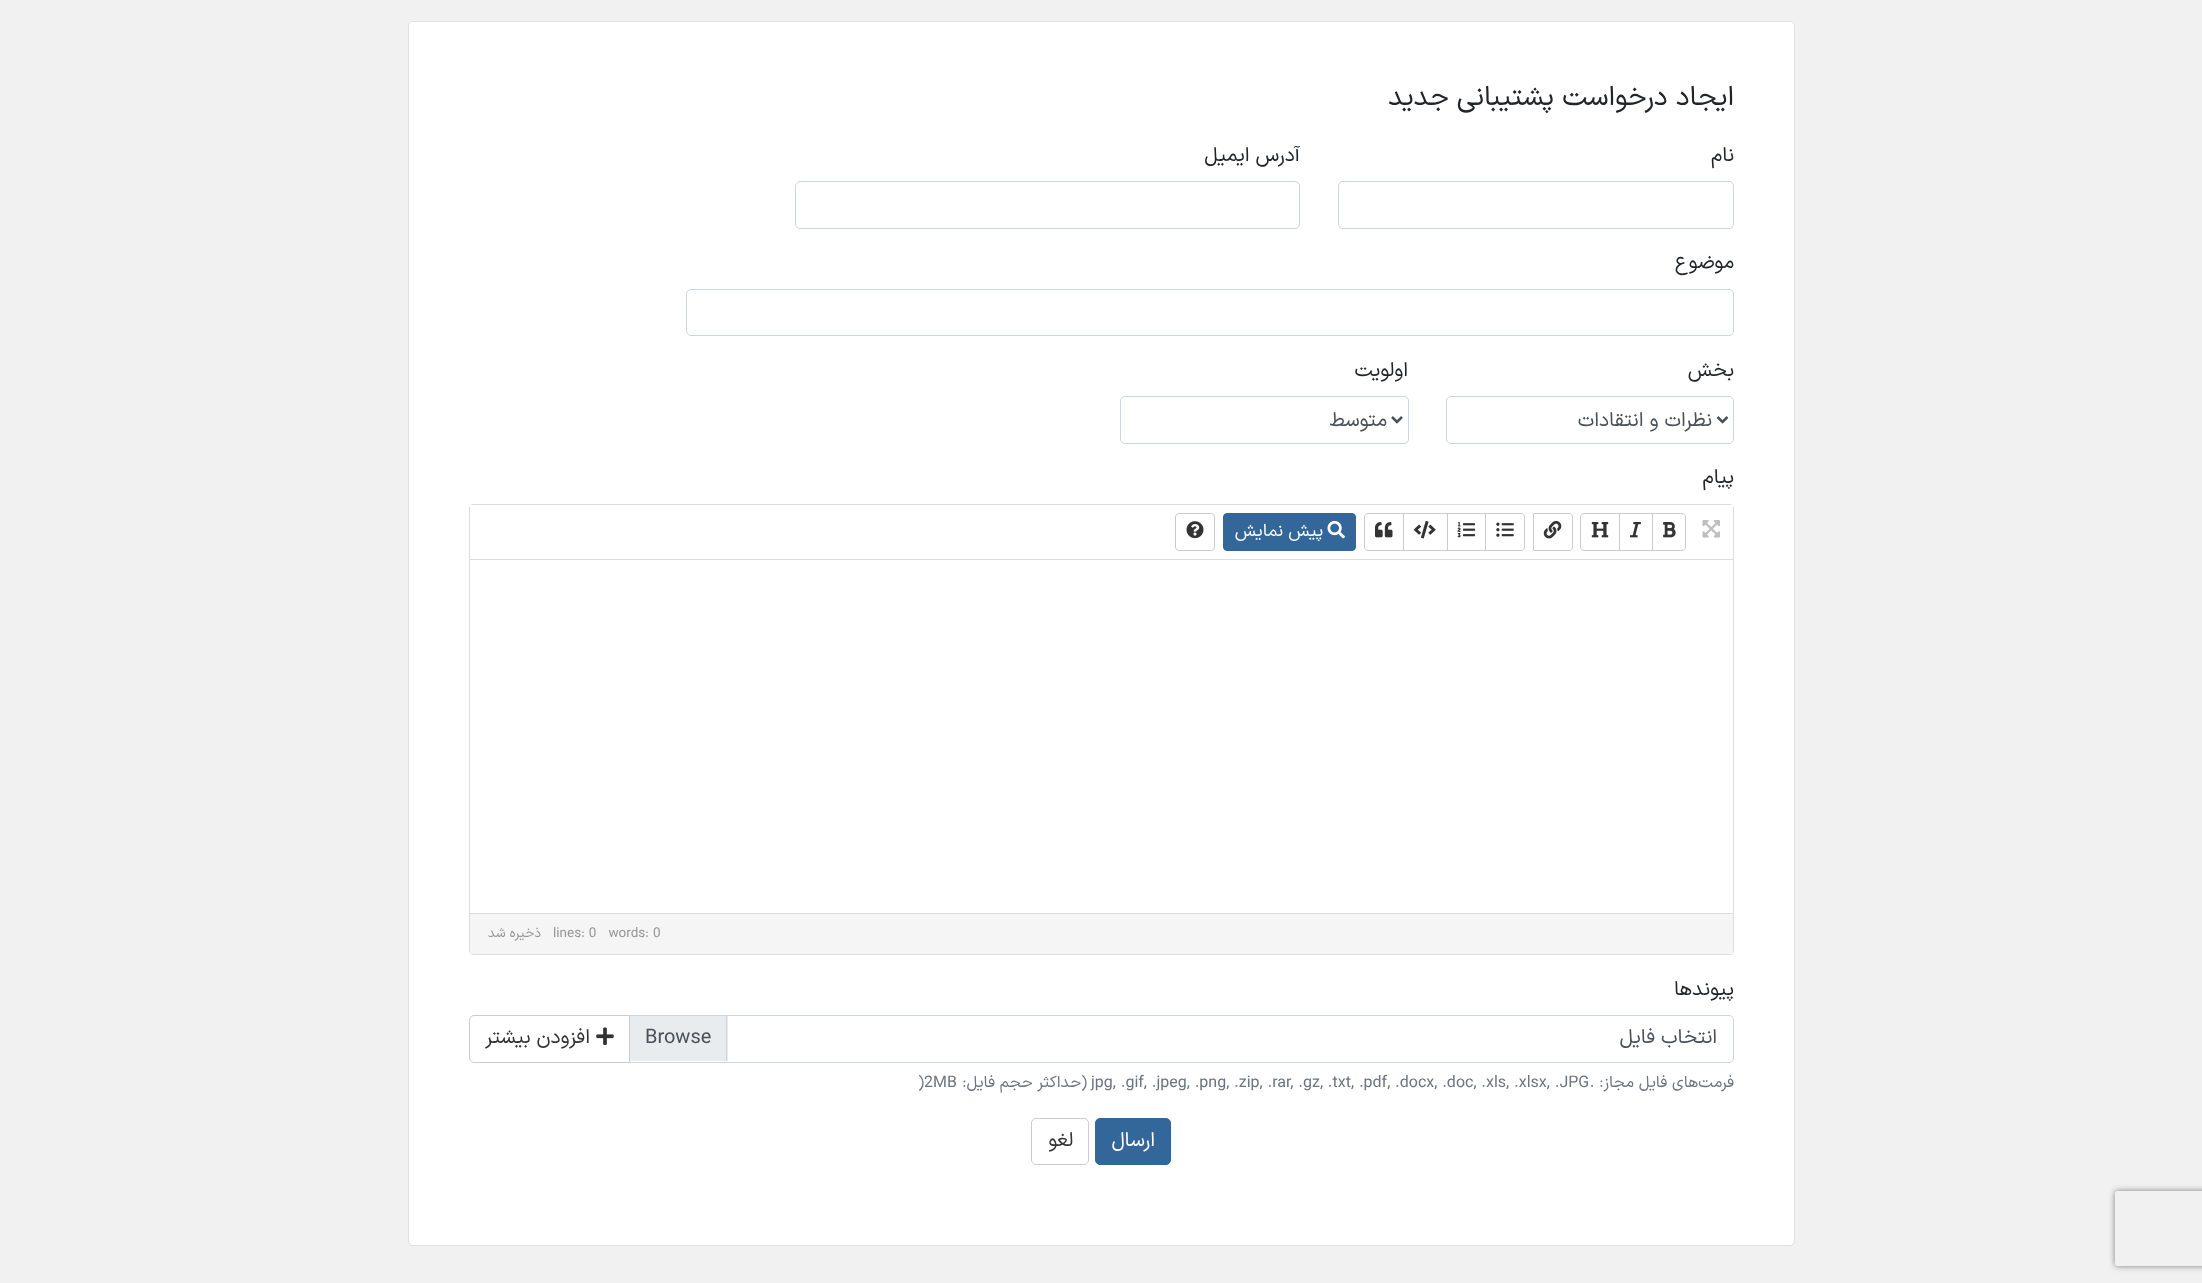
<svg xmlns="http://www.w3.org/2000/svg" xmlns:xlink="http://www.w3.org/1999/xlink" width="2202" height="1283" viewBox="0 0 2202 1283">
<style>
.cls-1{font:27.5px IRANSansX;direction:rtl;fill:#212529}
.cls-2{font:20px IRANSansX;direction:rtl;fill:#212529}
.cls-3{font:20px IRANSansX;direction:rtl;fill:#495057}
.cls-4{font:17.5px IRANSansX;direction:rtl;fill:#ffffff}
.cls-5{font:13.5px IRANSansX;fill:#959694}
.cls-6{font:13.5px IRANSansX;direction:rtl;fill:#959694}
.cls-7{font:20px IRANSansX;fill:#495057}
.cls-8{font:20px IRANSansX;direction:rtl;fill:#333333}
.cls-9{font:16px IRANSansX;direction:rtl;fill:#6c757d}
.cls-10{font:16px IRANSansX;fill:#6c757d}
.cls-11{font:20px IRANSansX;direction:rtl;fill:#ffffff}
</style>
<defs>
<clipPath id="clip1"><path d="M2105 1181H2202V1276H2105ZM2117.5 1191H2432.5C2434 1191 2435 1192 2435 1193.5V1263.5C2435 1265 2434 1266 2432.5 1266H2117.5C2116 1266 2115 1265 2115 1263.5V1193.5C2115 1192 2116 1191 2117.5 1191Z" clip-rule="evenodd"/></clipPath>
</defs>
<rect width="100%" height="100%" fill="#f1f1f1"/>
<rect fill="#ffffff" x="408" y="21" width="1387" height="1225" rx="5"/>
<rect fill="none" stroke="#000000" stroke-opacity="0.12" x="408.5" y="21.5" width="1386" height="1224" rx="4.5"/>
<rect fill="none" stroke="#ced4da" x="1338.5" y="181.5" width="395" height="47" rx="4.5"/>
<rect fill="none" stroke="#ced4da" x="795.5" y="181.5" width="504" height="47" rx="4.5"/>
<rect fill="none" stroke="#ced4da" x="686.5" y="289.5" width="1047" height="46" rx="4.5"/>
<rect fill="none" stroke="#ced4da" x="1446.5" y="396.5" width="287" height="47" rx="4.5"/>
<path fill="none" stroke="#495057" stroke-width="2.5" d="M1717.5 417L1722.5 422L1727.5 417"/>
<rect fill="none" stroke="#ced4da" x="1120.5" y="396.5" width="288" height="47" rx="4.5"/>
<path fill="none" stroke="#495057" stroke-width="2.5" d="M1392 417L1397 422L1402 417"/>
<rect fill="none" stroke="#dddddd" x="469.5" y="504.5" width="1264" height="450" rx="3.5"/>
<rect fill="#ffffff" x="470" y="505" width="1263" height="3"/>
<image xlink:href="image0.png" x="1702" y="520" width="18" height="18"/>
<path fill="none" stroke="#cccccc" d="M1651.5 513.5H1682C1684 513.5 1685.5 515 1685.5 517V547C1685.5 549 1684 550.5 1682 550.5H1651.5Z"/>
<image xlink:href="image1.png" x="1663" y="522" width="13" height="16"/>
<rect fill="#ffffff" x="1651" y="514" width="1" height="36"/>
<rect fill="none" stroke="#cccccc" x="1619.5" y="513.5" width="33" height="37"/>
<image xlink:href="image2.png" x="1630" y="522" width="11" height="16"/>
<path fill="#ffffff" stroke="#cccccc" d="M1584 513.5H1619.5V550.5H1584C1582 550.5 1580.5 549 1580.5 547V517C1580.5 515 1582 513.5 1584 513.5Z"/>
<image xlink:href="image3.png" x="1591" y="522" width="18" height="16"/>
<path fill="none" stroke="#cccccc" d="M1533.5 513.5H1569C1571 513.5 1572.5 515 1572.5 517V547C1572.5 549 1571 550.5 1569 550.5H1533.5Z"/>
<image xlink:href="image4.png" x="1543" y="520" width="19" height="19"/>
<path fill="none" stroke="#cccccc" d="M1485.5 513.5H1521C1523 513.5 1524.5 515 1524.5 517V547C1524.5 549 1523 550.5 1521 550.5H1485.5Z"/>
<image xlink:href="image5.png" x="1496" y="522" width="18" height="15"/>
<rect fill="none" stroke="#cccccc" x="1446.5" y="513.5" width="39" height="37"/>
<image xlink:href="image6.png" x="1457" y="522" width="19" height="16"/>
<rect fill="#ffffff" x="1446" y="514" width="1" height="36"/>
<rect fill="none" stroke="#cccccc" x="1403.5" y="513.5" width="44" height="37"/>
<image xlink:href="image7.png" x="1413" y="521" width="23" height="18"/>
<path fill="#ffffff" stroke="#cccccc" d="M1368 513.5H1403.5V550.5H1368C1366 550.5 1364.5 549 1364.5 547V517C1364.5 515 1366 513.5 1368 513.5Z"/>
<image xlink:href="image8.png" x="1375" y="522" width="18" height="16"/>
<rect fill="#336699" stroke="#336699" x="1223.5" y="513.5" width="132" height="37" rx="3.5"/>
<image xlink:href="image9.png" x="1327" y="520" width="18" height="19"/>
<rect fill="none" stroke="#cccccc" x="1175.5" y="513.5" width="39" height="37" rx="3.5"/>
<image xlink:href="image10.png" x="1186" y="521" width="18" height="18"/>
<rect fill="#dddddd" x="470" y="559" width="1263" height="1"/>
<rect fill="#dddddd" x="470" y="913" width="1263" height="1"/>
<rect fill="#f5f5f5" x="470" y="914" width="1263" height="40"/>
<path fill="none" stroke="#ced4da" d="M629.5 1015.5H1729C1731.5 1015.5 1733.5 1017.5 1733.5 1020V1058C1733.5 1060.5 1731.5 1062.5 1729 1062.5H629.5Z"/>
<rect fill="#e9ecef" x="630" y="1016" width="98" height="45"/>
<rect fill="#ced4da" x="726" y="1016" width="1" height="45"/>
<path fill="#ffffff" stroke="#cccccc" d="M474 1015.5H629.5V1062.5H474C471.5 1062.5 469.5 1060.5 469.5 1058V1020C469.5 1017.5 471.5 1015.5 474 1015.5Z"/>
<image xlink:href="image11.png" x="596" y="1027" width="18" height="18"/>
<rect fill="#336699" stroke="#336699" x="1095.5" y="1118.5" width="75" height="46" rx="4.5"/>
<rect fill="none" stroke="#cccccc" x="1031.5" y="1118.5" width="57" height="46" rx="4.5"/>
<g clip-path="url(#clip1)">
<rect fill="#808080" filter="blur(3px)" x="2115" y="1191" width="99" height="75" rx="2.5"/>
</g>
<text class="cls-1" x="1734" y="105">ایجاد درخواست پشتیبانی جدید</text>
<text class="cls-2" x="1734" y="161">نام</text>
<text class="cls-2" x="1300" y="161">آدرس ایمیل</text>
<text class="cls-2" x="1734" y="268">موضوع</text>
<text class="cls-2" x="1734" y="376">بخش</text>
<text class="cls-3" x="1712" y="426">نظرات و انتقادات</text>
<text class="cls-2" x="1408" y="376">اولویت</text>
<text class="cls-3" x="1387" y="426">متوسط</text>
<text class="cls-2" x="1734" y="483">پیام</text>
<text class="cls-4" x="1323" y="536">پیش نمایش</text>
<text class="cls-5" xml:space="preserve" x="553" y="937">lines: 0   words: 0</text>
<text class="cls-6" x="541" y="937">ذخیره شد</text>
<text class="cls-2" x="1734" y="995">پیوندها</text>
<text class="cls-3" x="1717" y="1043">انتخاب فایل</text>
<text class="cls-7" x="645" y="1043">Browse</text>
<text class="cls-8" x="590" y="1043">افزودن بیشتر</text>
<text class="cls-9" x="1734" y="1087">فرمت‌های فایل مجاز: .</text>
<text class="cls-10" x="1091" y="1087">jpg, .gif, .jpeg, .png, .zip, .rar, .gz, .txt, .pdf, .docx, .doc, .xls, .xlsx, .JPG</text>
<text class="cls-9" x="1087" y="1087">(حداکثر حجم فایل:</text>
<text class="cls-10" x="918" y="1087">)2MB</text>
<text class="cls-11" x="1155" y="1146">ارسال</text>
<text class="cls-8" x="1073" y="1146">لغو</text>
</svg>
